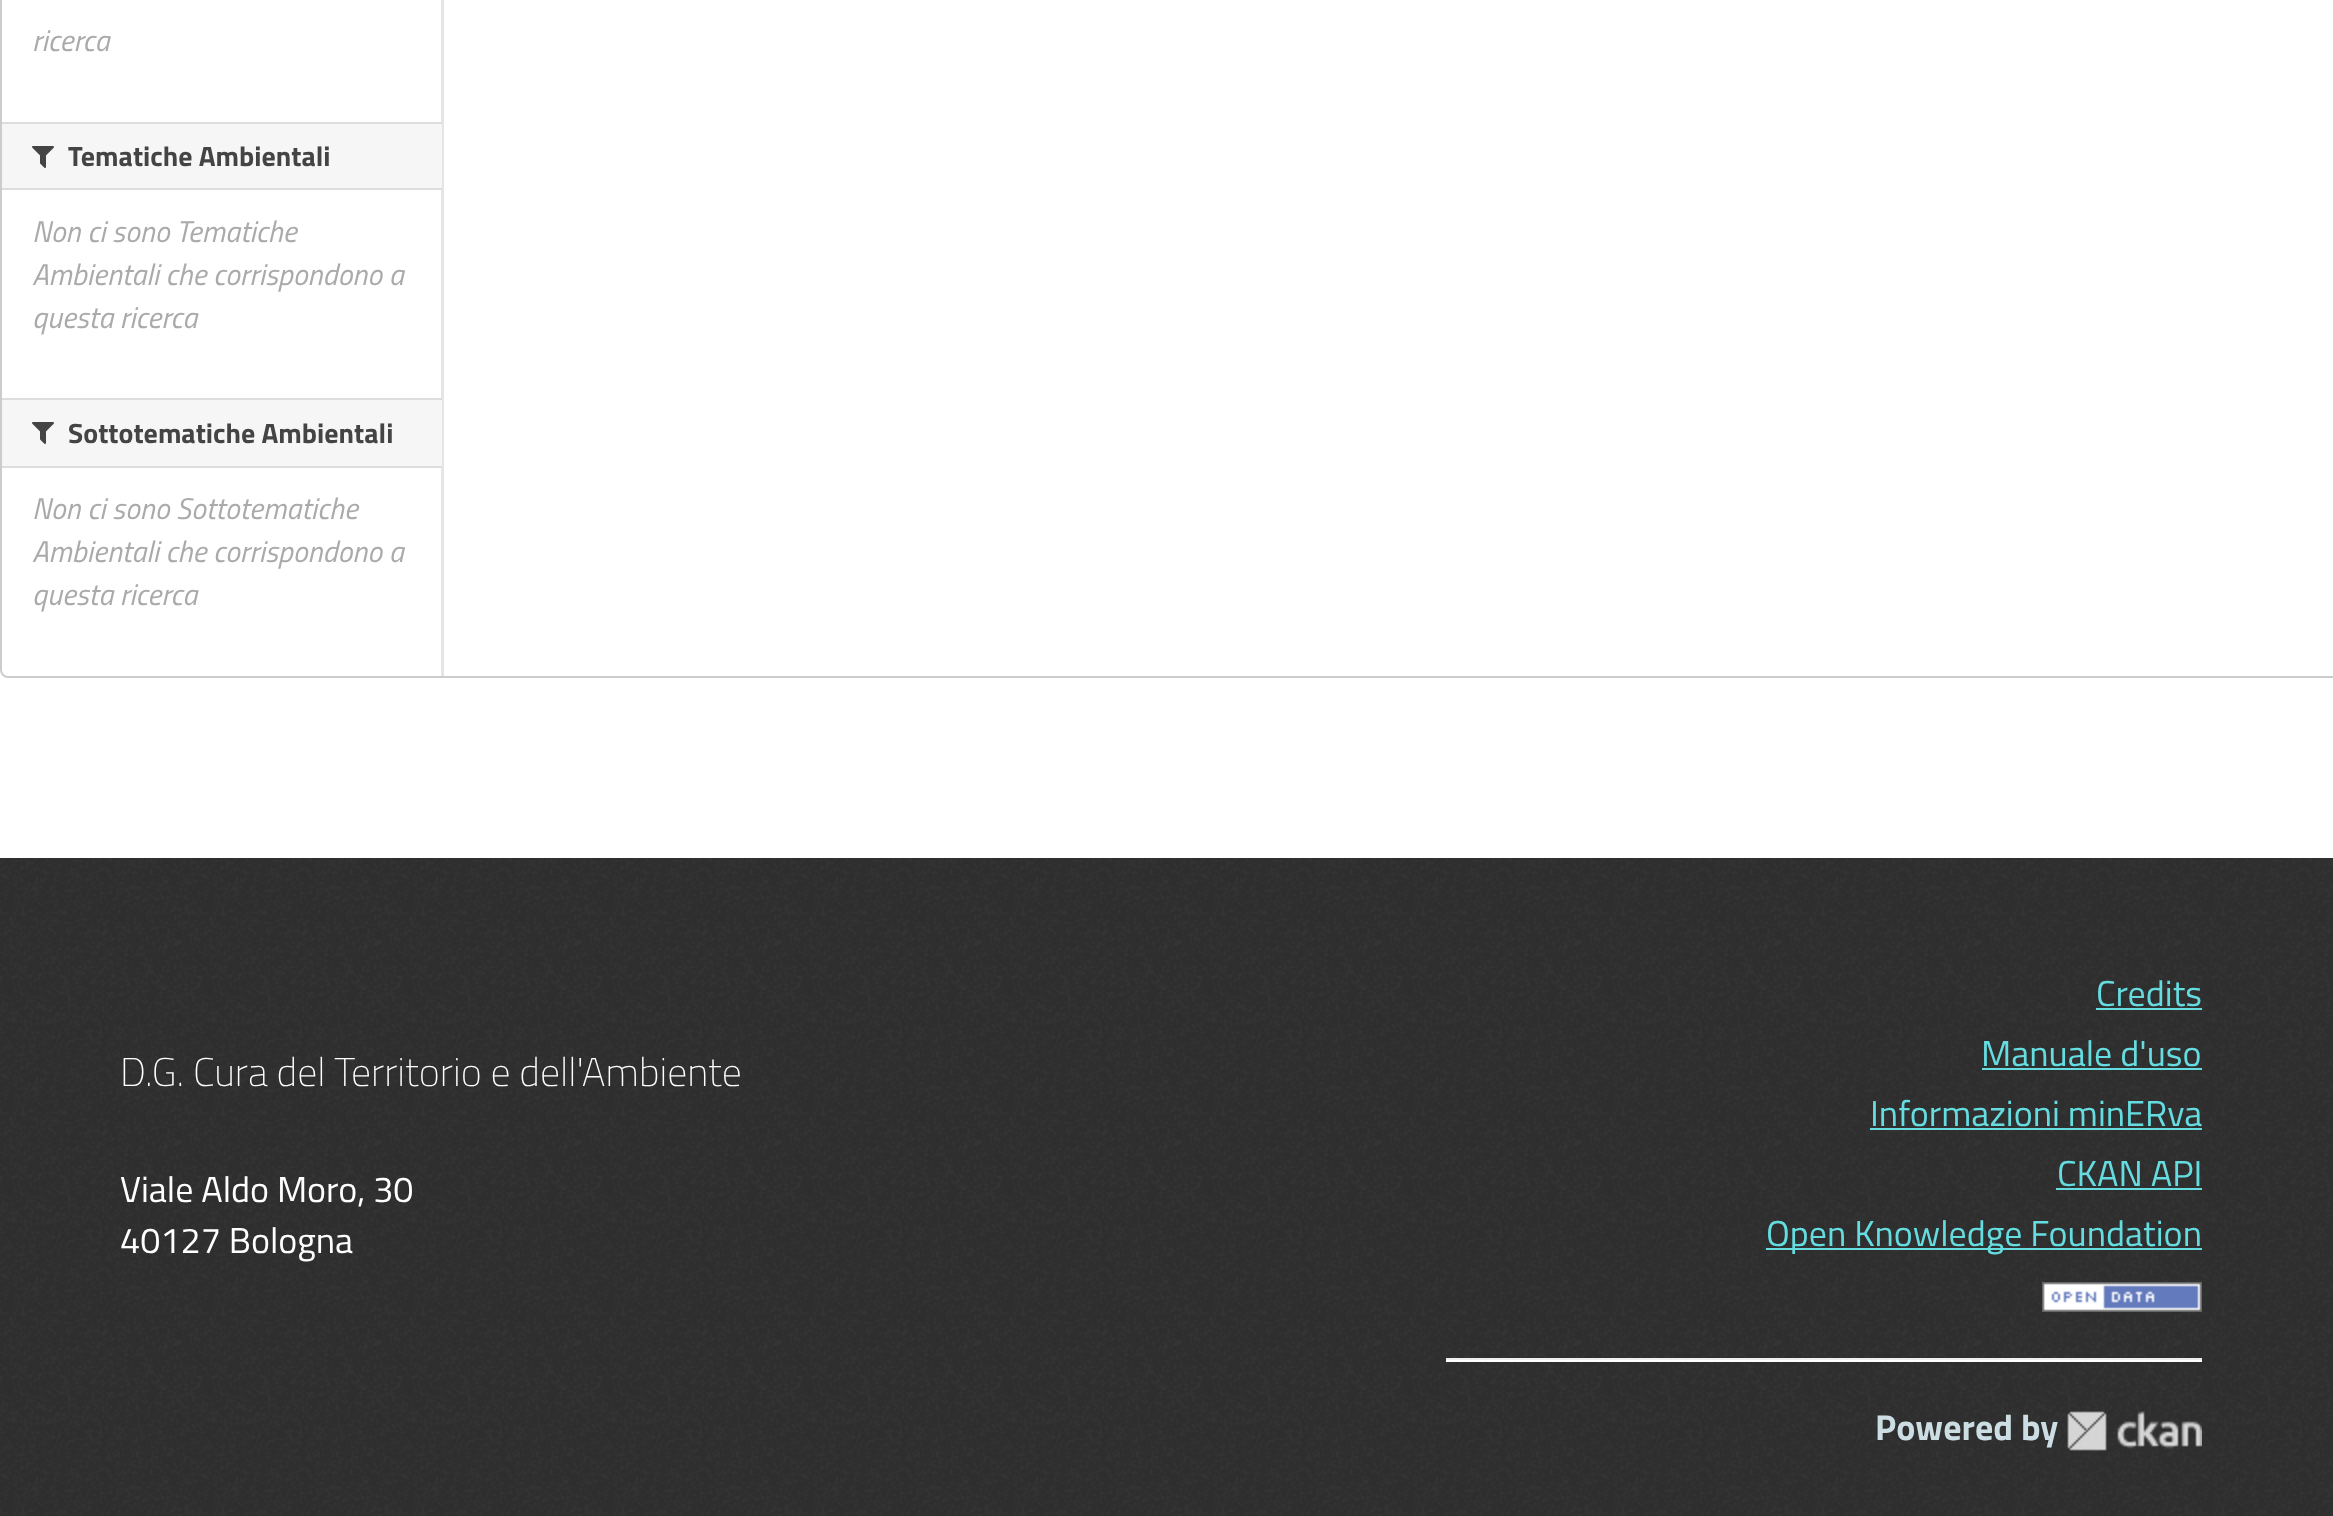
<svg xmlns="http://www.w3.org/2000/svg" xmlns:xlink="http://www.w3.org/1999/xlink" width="2333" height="1516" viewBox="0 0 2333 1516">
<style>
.cls-1{font:italic 30px Titillium Web;fill:#aaaaaa}
.cls-2{font:bold 28px Titillium Web;fill:#444444}
.cls-3{font:300 40px Titillium Web;fill:#ffffff}
.cls-4{font:36px Titillium Web;fill:#ffffff}
.cls-5{font:36px Titillium Web;fill:#65dde0}
.cls-6{font:bold 36px Titillium Web;fill:#ccdee3}
</style>
<rect width="100%" height="100%" fill="#ffffff"/>
<rect fill="#e5e5e5" x="441" y="0" width="3" height="678"/>
<rect fill="none" stroke="#cccccc" stroke-width="2" x="1" y="-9" width="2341" height="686" rx="7"/>
<rect fill="#f6f6f6" x="2" y="124" width="440" height="64"/>
<rect fill="#dddddd" x="2" y="122" width="440" height="2"/>
<rect fill="#dddddd" x="2" y="188" width="440" height="2"/>
<image xlink:href="image0.png" x="32" y="146" width="22" height="22"/>
<rect fill="#f6f6f6" x="2" y="400" width="440" height="66"/>
<rect fill="#dddddd" x="2" y="398" width="440" height="2"/>
<rect fill="#dddddd" x="2" y="466" width="440" height="2"/>
<image xlink:href="image0.png" x="32" y="422" width="22" height="22"/>
<rect fill="#303030" x="0" y="858" width="2333" height="658"/>
<image xlink:href="image1.png" x="0" y="858" width="2332" height="658"/>
<rect fill="#65dde0" x="2096" y="1008" width="106" height="2"/>
<rect fill="#65dde0" x="1982" y="1068" width="220" height="2"/>
<rect fill="#65dde0" x="1870" y="1128" width="332" height="2"/>
<rect fill="#65dde0" x="2056" y="1188" width="146" height="2"/>
<rect fill="#65dde0" x="1766" y="1248" width="436" height="2"/>
<image xlink:href="image2.png" x="2042" y="1282" width="160" height="30"/>
<rect fill="#eeeeee" x="1446" y="1358" width="756" height="2"/>
<rect fill="#ffffff" x="1446" y="1360" width="756" height="2"/>
<image xlink:href="image3.png" x="2067" y="1411" width="135" height="40"/>
<text class="cls-1" x="32" y="51">ricerca</text>
<text class="cls-2" x="68" y="166">Tematiche Ambientali</text>
<text class="cls-1"><tspan x="32" y="242">Non ci sono Tematiche</tspan><tspan x="32" y="285">Ambientali che corrispondono a</tspan><tspan x="32" y="328">questa ricerca</tspan></text>
<text class="cls-2" x="68" y="443">Sottotematiche Ambientali</text>
<text class="cls-1"><tspan x="32" y="519">Non ci sono Sottotematiche</tspan><tspan x="32" y="562">Ambientali che corrispondono a</tspan><tspan x="32" y="605">questa ricerca</tspan></text>
<text class="cls-3" x="120" y="1086">D.G. Cura del Territorio e dell'Ambiente</text>
<text class="cls-4"><tspan x="120" y="1202">Viale Aldo Moro, 30</tspan><tspan x="120" y="1253">40127 Bologna</tspan></text>
<text class="cls-5" x="2096" y="1006">Credits</text>
<text class="cls-5" x="1981" y="1066">Manuale d'uso</text>
<text class="cls-5" x="1870" y="1126">Informazioni minERva</text>
<text class="cls-5" x="2057" y="1186">CKAN API</text>
<text class="cls-5" x="1766" y="1246">Open Knowledge Foundation</text>
<text class="cls-6" x="1875" y="1440">Powered by</text>
</svg>
